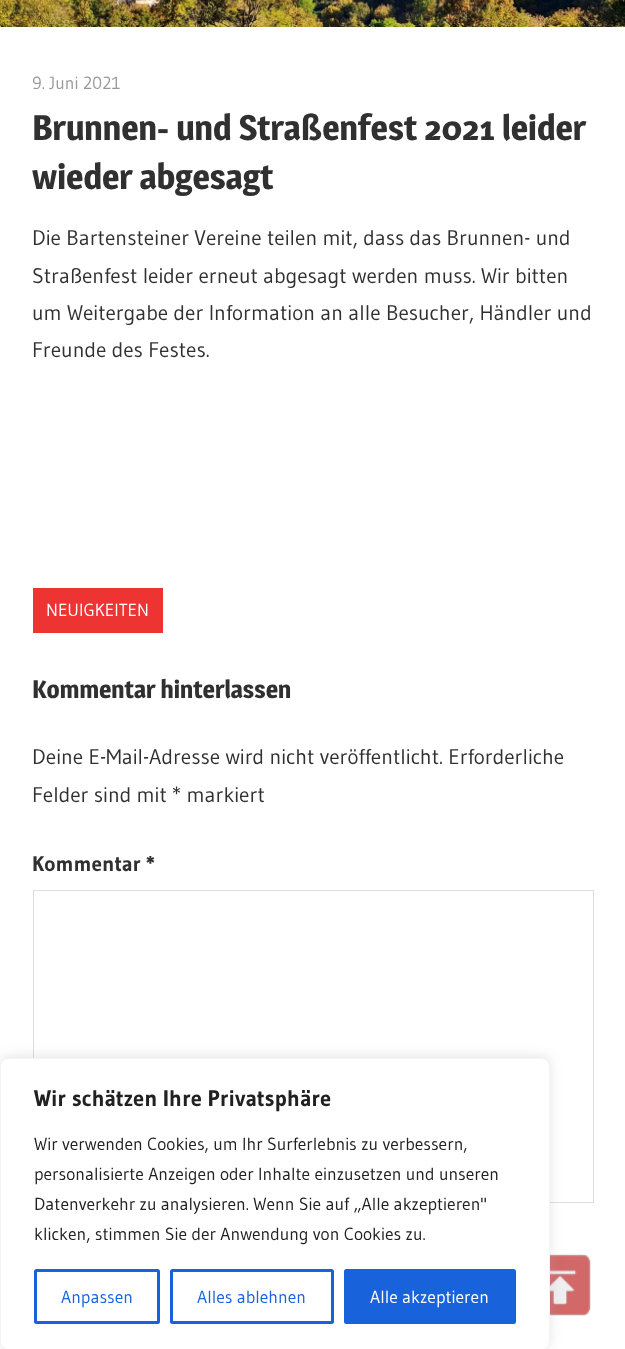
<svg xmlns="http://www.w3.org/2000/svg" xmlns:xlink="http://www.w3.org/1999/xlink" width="625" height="1349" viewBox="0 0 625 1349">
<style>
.cls-1{font:17.5px Gudea;fill:#999999}
.cls-2{font:600 35px Magra;fill:#303030}
.cls-3{font:21.25px Gudea;fill:#303030}
.cls-4{font:17.5px Gudea;fill:#ffffff}
.cls-5{font:600 25px Magra;fill:#303030}
.cls-6{font:bold 21.25px Gudea;fill:#303030}
.cls-7{font:bold 22.5px Gudea;fill:#212121}
.cls-8{font:17.5px Gudea;fill:#212121}
.cls-9{font:17.5px Gudea;fill:#1863dc}
</style>
<rect width="100%" height="100%" fill="#ffffff"/>
<image xlink:href="image0.png" x="0" y="0" width="625" height="27"/>
<rect fill="#ee3333" x="33" y="588" width="130" height="45"/>
<rect fill="none" stroke="#dddddd" x="33.5" y="890.5" width="560" height="312"/>
<image xlink:href="image1.png" x="550" y="1254" width="41" height="62"/>
<rect fill="#acabab" fill-opacity="0.3" filter="blur(6px)" x="0" y="1056" width="550" height="293" rx="8"/>
<rect fill="#ffffff" stroke="#f4f4f4" x="0.5" y="1058.5" width="549" height="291" rx="7.5"/>
<rect fill="none" stroke="#1863dc" stroke-width="3" x="35.5" y="1270.5" width="123" height="52" rx="1"/>
<rect fill="none" stroke="#1863dc" stroke-width="3" x="171.5" y="1270.5" width="161" height="52" rx="1"/>
<rect fill="#1863dc" stroke="#1863dc" stroke-width="3" x="345.5" y="1270.5" width="169" height="52" rx="1"/>
<text class="cls-1" x="32" y="89">9. Juni 2021</text>
<text class="cls-2"><tspan x="32" y="140">Brunnen- und Straßenfest 2021 leider</tspan><tspan x="32" y="189">wieder abgesagt</tspan></text>
<text class="cls-3"><tspan x="32" y="245">Die Bartensteiner Vereine teilen mit, dass das Brunnen- und</tspan><tspan x="32" y="283">Straßenfest leider erneut abgesagt werden muss. Wir bitten</tspan><tspan x="32" y="320">um Weitergabe der Information an alle Besucher, Händler und</tspan><tspan x="32" y="357">Freunde des Festes.</tspan></text>
<text class="cls-4" x="46" y="616">NEUIGKEITEN</text>
<text class="cls-5" x="32" y="698">Kommentar hinterlassen</text>
<text class="cls-3"><tspan x="32" y="764">Deine E-Mail-Adresse wird nicht veröffentlicht. Erforderliche</tspan><tspan x="32" y="802">Felder sind mit * markiert</tspan></text>
<text class="cls-6" x="32" y="871">Kommentar *</text>
<text class="cls-7" x="34" y="1106">Wir schätzen Ihre Privatsphäre</text>
<text class="cls-8"><tspan x="34" y="1150">Wir verwenden Cookies, um Ihr Surferlebnis zu verbessern,</tspan><tspan x="34" y="1180">personalisierte Anzeigen oder Inhalte einzusetzen und unseren</tspan><tspan x="34" y="1210">Datenverkehr zu analysieren. Wenn Sie auf „Alle akzeptieren"</tspan><tspan x="34" y="1240">klicken, stimmen Sie der Anwendung von Cookies zu.</tspan></text>
<text class="cls-9" x="61" y="1303">Anpassen</text>
<text class="cls-9" x="197" y="1303">Alles ablehnen</text>
<text class="cls-4" x="370" y="1303">Alle akzeptieren</text>
</svg>
